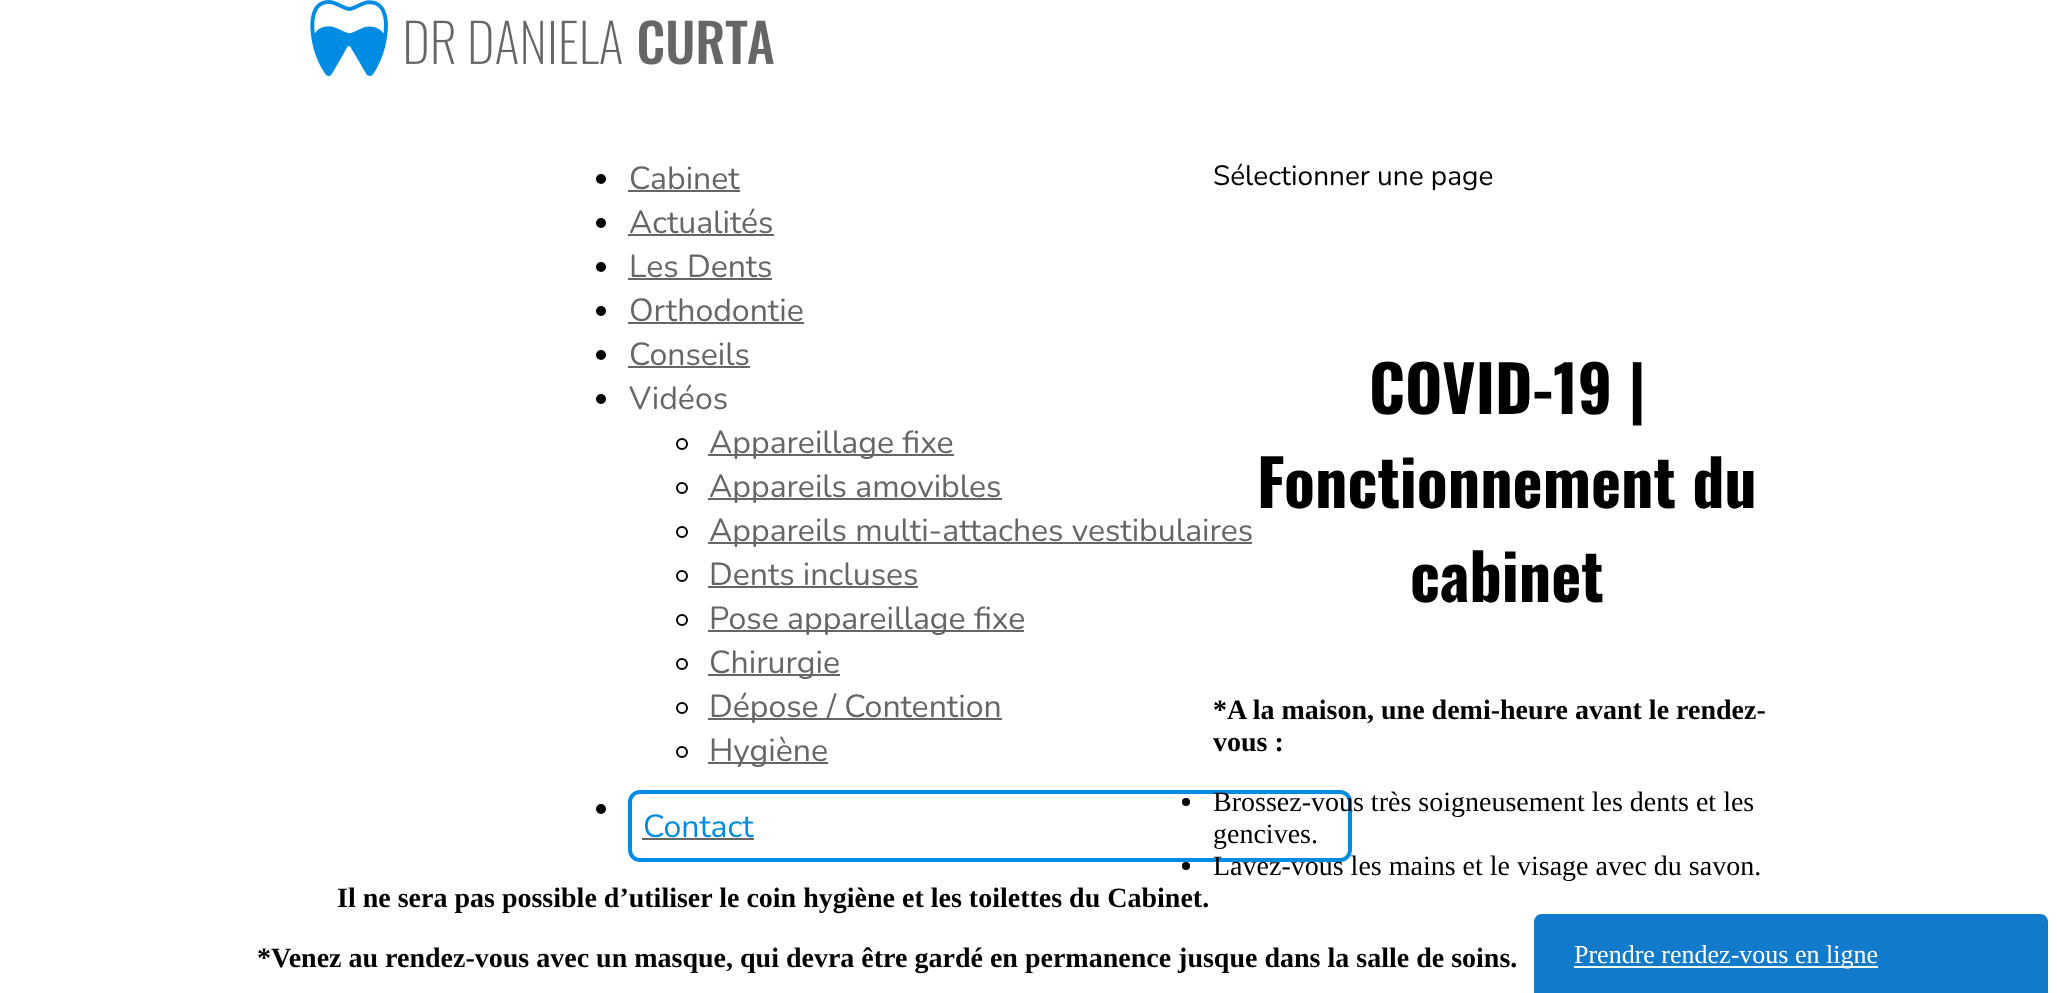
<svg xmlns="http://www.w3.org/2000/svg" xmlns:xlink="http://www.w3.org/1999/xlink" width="2057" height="993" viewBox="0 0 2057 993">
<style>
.cls-1{font:32px Nunito;fill:#666666}
.cls-2{font:32px Nunito;fill:#018ce3}
.cls-3{font:28px Nunito;fill:#000000}
.cls-4{font:bold 64px Oswald;fill:#000000}
.cls-5{font:bold 28px Liberation Serif;fill:#000000}
.cls-6{font:28px Liberation Serif;fill:#000000}
.cls-7{font:26px Liberation Serif;fill:#ffffff}
</style>
<rect width="100%" height="100%" fill="#ffffff"/>
<image xlink:href="image0.png" x="310" y="0" width="464" height="76"/>
<circle fill="#000000" cx="601" cy="179" r="5"/>
<rect fill="#666666" x="628" y="190" width="112" height="2"/>
<circle fill="#000000" cx="601" cy="223" r="5"/>
<rect fill="#666666" x="628" y="234" width="146" height="2"/>
<circle fill="#000000" cx="601" cy="267" r="5"/>
<rect fill="#666666" x="628" y="278" width="144" height="2"/>
<circle fill="#000000" cx="601" cy="311" r="5"/>
<rect fill="#666666" x="628" y="322" width="176" height="2"/>
<circle fill="#000000" cx="601" cy="355" r="5"/>
<rect fill="#666666" x="628" y="366" width="122" height="2"/>
<circle fill="#000000" cx="601" cy="399" r="5"/>
<circle fill="none" stroke="#000000" stroke-width="2" cx="682" cy="444" r="5"/>
<rect fill="#666666" x="708" y="454" width="246" height="2"/>
<circle fill="none" stroke="#000000" stroke-width="2" cx="682" cy="488" r="5"/>
<rect fill="#666666" x="708" y="498" width="294" height="2"/>
<circle fill="none" stroke="#000000" stroke-width="2" cx="682" cy="532" r="5"/>
<rect fill="#666666" x="708" y="542" width="544" height="2"/>
<circle fill="none" stroke="#000000" stroke-width="2" cx="682" cy="576" r="5"/>
<rect fill="#666666" x="708" y="586" width="210" height="2"/>
<circle fill="none" stroke="#000000" stroke-width="2" cx="682" cy="620" r="5"/>
<rect fill="#666666" x="708" y="630" width="316" height="2"/>
<circle fill="none" stroke="#000000" stroke-width="2" cx="682" cy="664" r="5"/>
<rect fill="#666666" x="708" y="674" width="132" height="2"/>
<circle fill="none" stroke="#000000" stroke-width="2" cx="682" cy="708" r="5"/>
<rect fill="#666666" x="708" y="718" width="294" height="2"/>
<circle fill="none" stroke="#000000" stroke-width="2" cx="682" cy="752" r="5"/>
<rect fill="#666666" x="708" y="762" width="120" height="2"/>
<circle fill="#000000" cx="601" cy="809" r="5"/>
<rect fill="none" stroke="#018ce3" stroke-width="4" x="630" y="792" width="720" height="68" rx="10"/>
<rect fill="#666666" x="642" y="838" width="112" height="2"/>
<circle fill="#000000" cx="1186" cy="802" r="4"/>
<circle fill="#000000" cx="1186" cy="866" r="4"/>
<path fill="#117aca" d="M1542 914H2040C2044.5 914 2048 917.5 2048 922V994H1534V922C1534 917.5 1537.5 914 1542 914Z"/>
<rect fill="#ffffff" x="1574" y="966" width="304" height="2"/>
<text class="cls-1"><tspan x="629" y="189">Cabinet</tspan><tspan x="629" y="233">Actualités</tspan><tspan x="629" y="277">Les Dents</tspan><tspan x="629" y="321">Orthodontie</tspan><tspan x="629" y="365">Conseils</tspan><tspan x="629" y="409">Vidéos</tspan></text>
<text class="cls-1"><tspan x="709" y="453">Appareillage fixe</tspan><tspan x="709" y="497">Appareils amovibles</tspan><tspan x="709" y="541">Appareils multi-attaches vestibulaires</tspan><tspan x="709" y="585">Dents incluses</tspan><tspan x="709" y="629">Pose appareillage fixe</tspan><tspan x="709" y="673">Chirurgie</tspan><tspan x="709" y="717">Dépose / Contention</tspan><tspan x="709" y="761">Hygiène</tspan></text>
<text class="cls-2" x="643" y="837">Contact</text>
<text class="cls-3" x="1213" y="185">Sélectionner une page</text>
<text class="cls-4" x="1369" y="414">COVID-19 |</text>
<text class="cls-4" x="1257" y="508">Fonctionnement du</text>
<text class="cls-4" x="1410" y="602">cabinet</text>
<text class="cls-5"><tspan x="1213" y="719">*A la maison, une demi-heure avant le rendez-</tspan><tspan x="1213" y="751">vous :</tspan></text>
<text class="cls-6"><tspan x="1213" y="811">Brossez-vous très soigneusement les dents et les</tspan><tspan x="1213" y="843">gencives.</tspan><tspan x="1213" y="875">Lavez-vous les mains et le visage avec du savon.</tspan></text>
<text class="cls-5" x="337" y="907">Il ne sera pas possible d’utiliser le coin hygiène et les toilettes du Cabinet.</text>
<text class="cls-5" x="257" y="967">*Venez au rendez-vous avec un masque, qui devra être gardé en permanence jusque dans la salle de soins.</text>
<text class="cls-7" x="1574" y="963">Prendre rendez-vous en ligne</text>
</svg>
